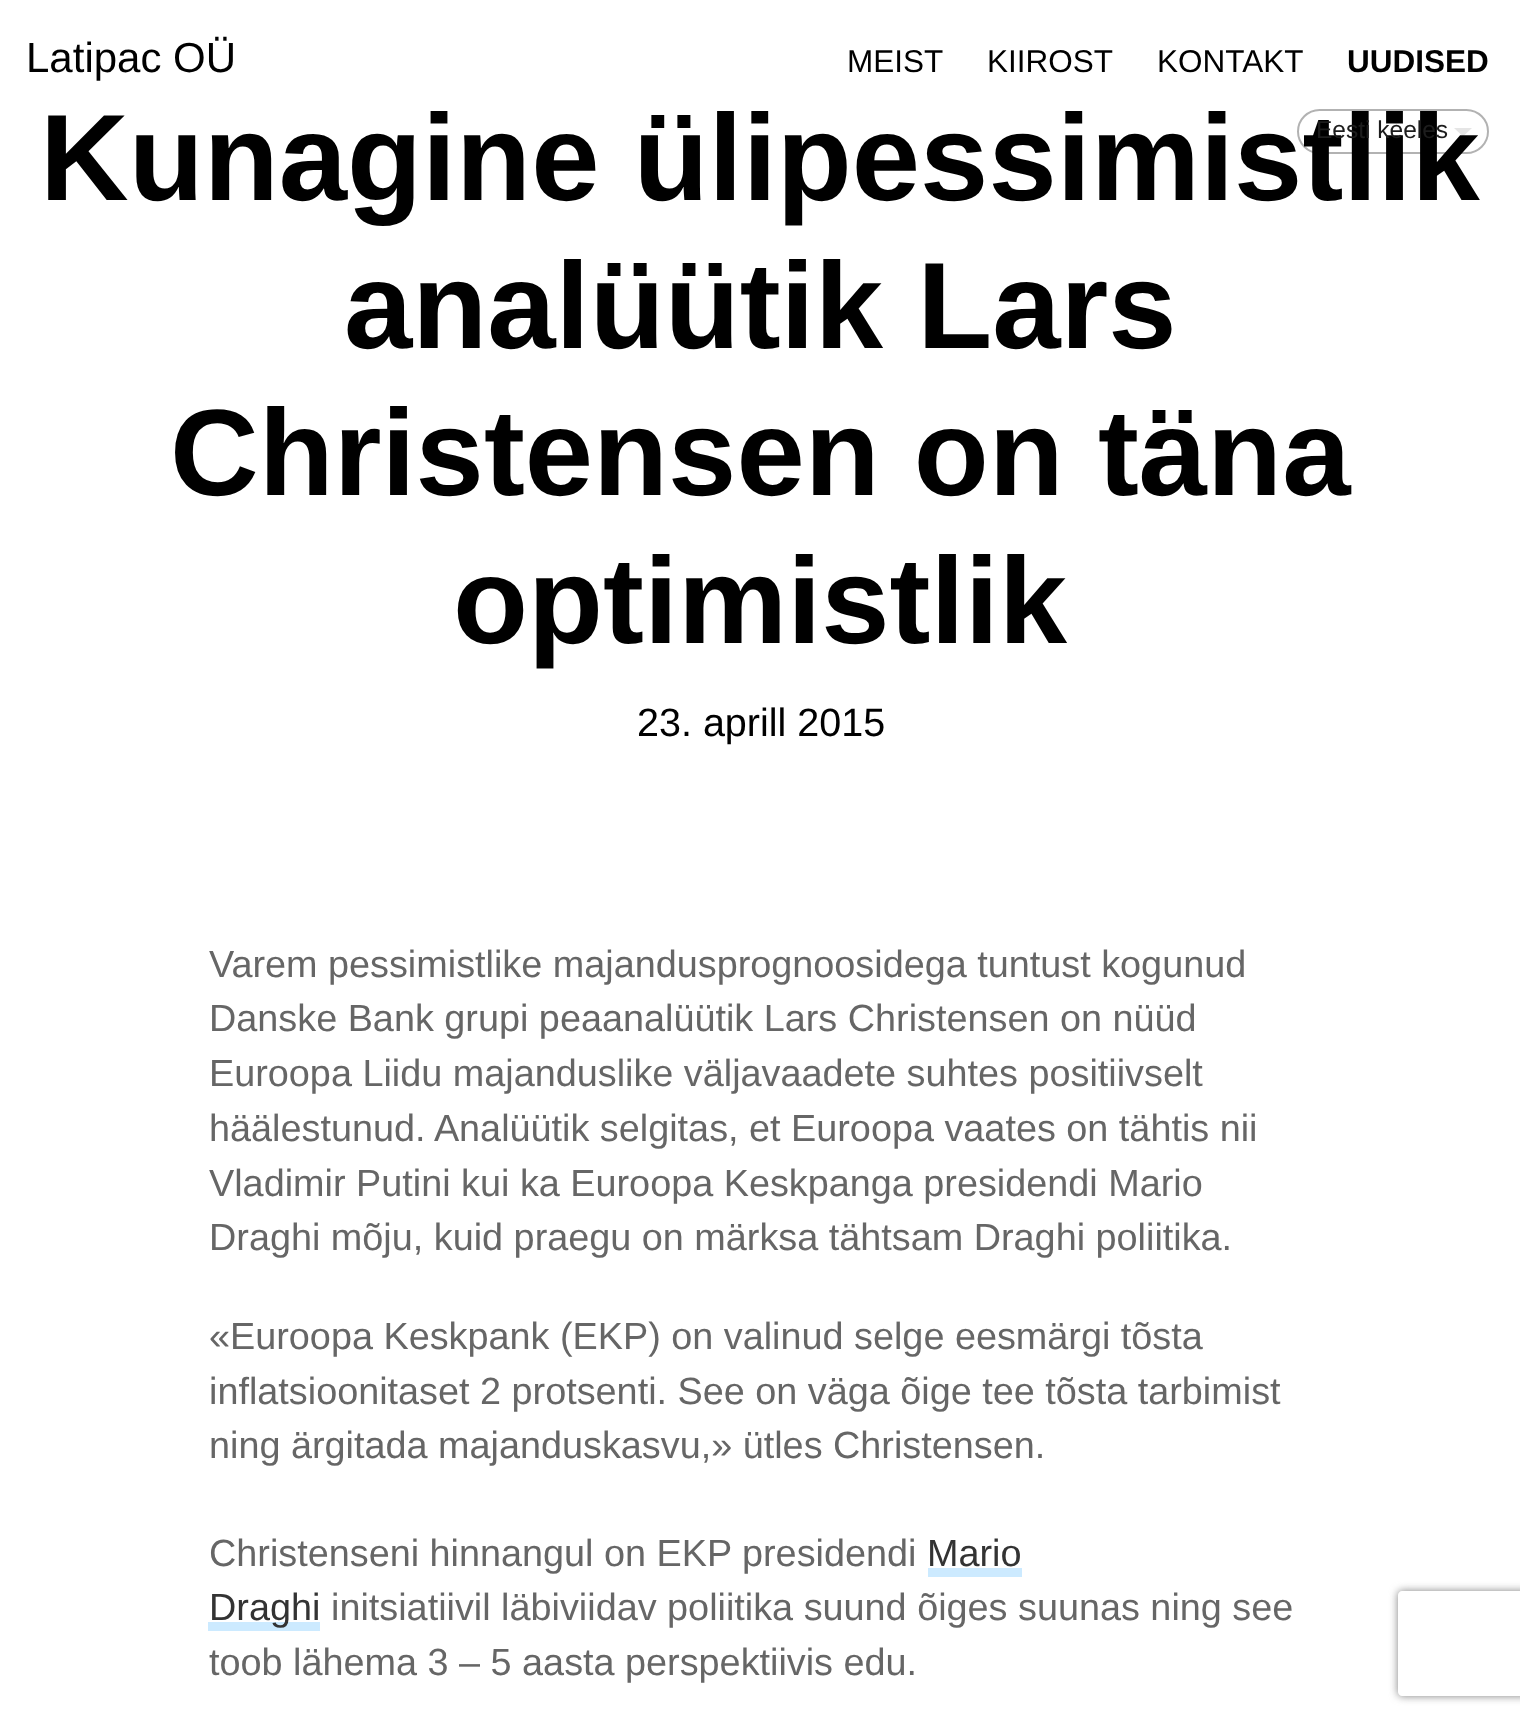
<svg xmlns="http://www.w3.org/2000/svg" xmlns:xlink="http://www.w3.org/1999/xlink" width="1520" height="1720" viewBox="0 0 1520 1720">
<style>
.cls-1{font:42px Liberation Sans;fill:#000000}
.cls-2{font:31.5px Liberation Sans;fill:#000000}
.cls-3{font:bold 31.5px Liberation Sans;fill:#000000}
.cls-4{font:bold 122.8px Liberation Sans;fill:#000000}
.cls-5{font:24.5px Liberation Sans;fill:#1d1d1d}
.cls-6{font:39.5px Liberation Sans;fill:#000000}
.cls-7{font:37.8px Liberation Sans;fill:#666666}
.cls-8{font:37.8px Liberation Sans;fill:#333333}
</style>
<defs>
<clipPath id="clip1"><path d="M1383 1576H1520V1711H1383ZM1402 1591H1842C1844 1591 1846 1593 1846 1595V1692C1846 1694 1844 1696 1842 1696H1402C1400 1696 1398 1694 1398 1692V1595C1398 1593 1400 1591 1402 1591Z" clip-rule="evenodd"/></clipPath>
</defs>
<rect width="100%" height="100%" fill="#ffffff"/>
<rect fill="#cceaff" x="928" y="1568" width="94" height="9"/>
<rect fill="#cceaff" x="208" y="1622" width="112" height="9"/>
<g clip-path="url(#clip1)">
<rect fill="#808080" filter="blur(4.5px)" x="1398" y="1591" width="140" height="105" rx="4"/>
</g>
<text class="cls-1" x="26" y="72">Latipac OÜ</text>
<text class="cls-2" x="847" y="72">MEIST</text>
<text class="cls-2" x="987" y="72">KIIROST</text>
<text class="cls-2" x="1157" y="72">KONTAKT</text>
<text class="cls-3" x="1347" y="72">UUDISED</text>
<text class="cls-4" x="40" y="200">Kunagine ülipessimistlik</text>
<rect fill="none" stroke="#000000" stroke-opacity="0.3" stroke-width="2" x="1298" y="110" width="190" height="43" rx="21.5"/>
<path fill="#000000" fill-opacity="0.1" d="M1454 128H1472L1463 136.5Z"/>
<text class="cls-5" x="1316" y="138">Eesti keeles</text>
<text class="cls-4" x="344" y="348">analüütik Lars</text>
<text class="cls-4" x="170" y="495">Christensen on täna</text>
<text class="cls-4" x="453" y="643">optimistlik</text>
<text class="cls-6" x="637" y="736">23. aprill 2015</text>
<text class="cls-7"><tspan x="209" y="977">Varem pessimistlike majandusprognoosidega tuntust kogunud</tspan><tspan x="209" y="1031">Danske Bank grupi peaanalüütik Lars Christensen on nüüd</tspan><tspan x="209" y="1086">Euroopa Liidu majanduslike väljavaadete suhtes positiivselt</tspan><tspan x="209" y="1141">häälestunud. Analüütik selgitas, et Euroopa vaates on tähtis nii</tspan><tspan x="209" y="1196">Vladimir Putini kui ka Euroopa Keskpanga presidendi Mario</tspan><tspan x="209" y="1250">Draghi mõju, kuid praegu on märksa tähtsam Draghi poliitika.</tspan></text>
<text class="cls-7"><tspan x="209" y="1349">«Euroopa Keskpank (EKP) on valinud selge eesmärgi tõsta</tspan><tspan x="209" y="1404">inflatsioonitaset 2 protsenti. See on väga õige tee tõsta tarbimist</tspan><tspan x="209" y="1458">ning ärgitada majanduskasvu,» ütles Christensen.</tspan></text>
<text class="cls-7" x="209" y="1566">Christenseni hinnangul on EKP presidendi</text>
<text class="cls-8" x="927" y="1566">Mario</text>
<text class="cls-8" x="209" y="1620">Draghi</text>
<text class="cls-7" x="331" y="1620">initsiatiivil läbiviidav poliitika suund õiges suunas ning see</text>
<text class="cls-7" x="209" y="1675">toob lähema 3 – 5 aasta perspektiivis edu.</text>
</svg>
